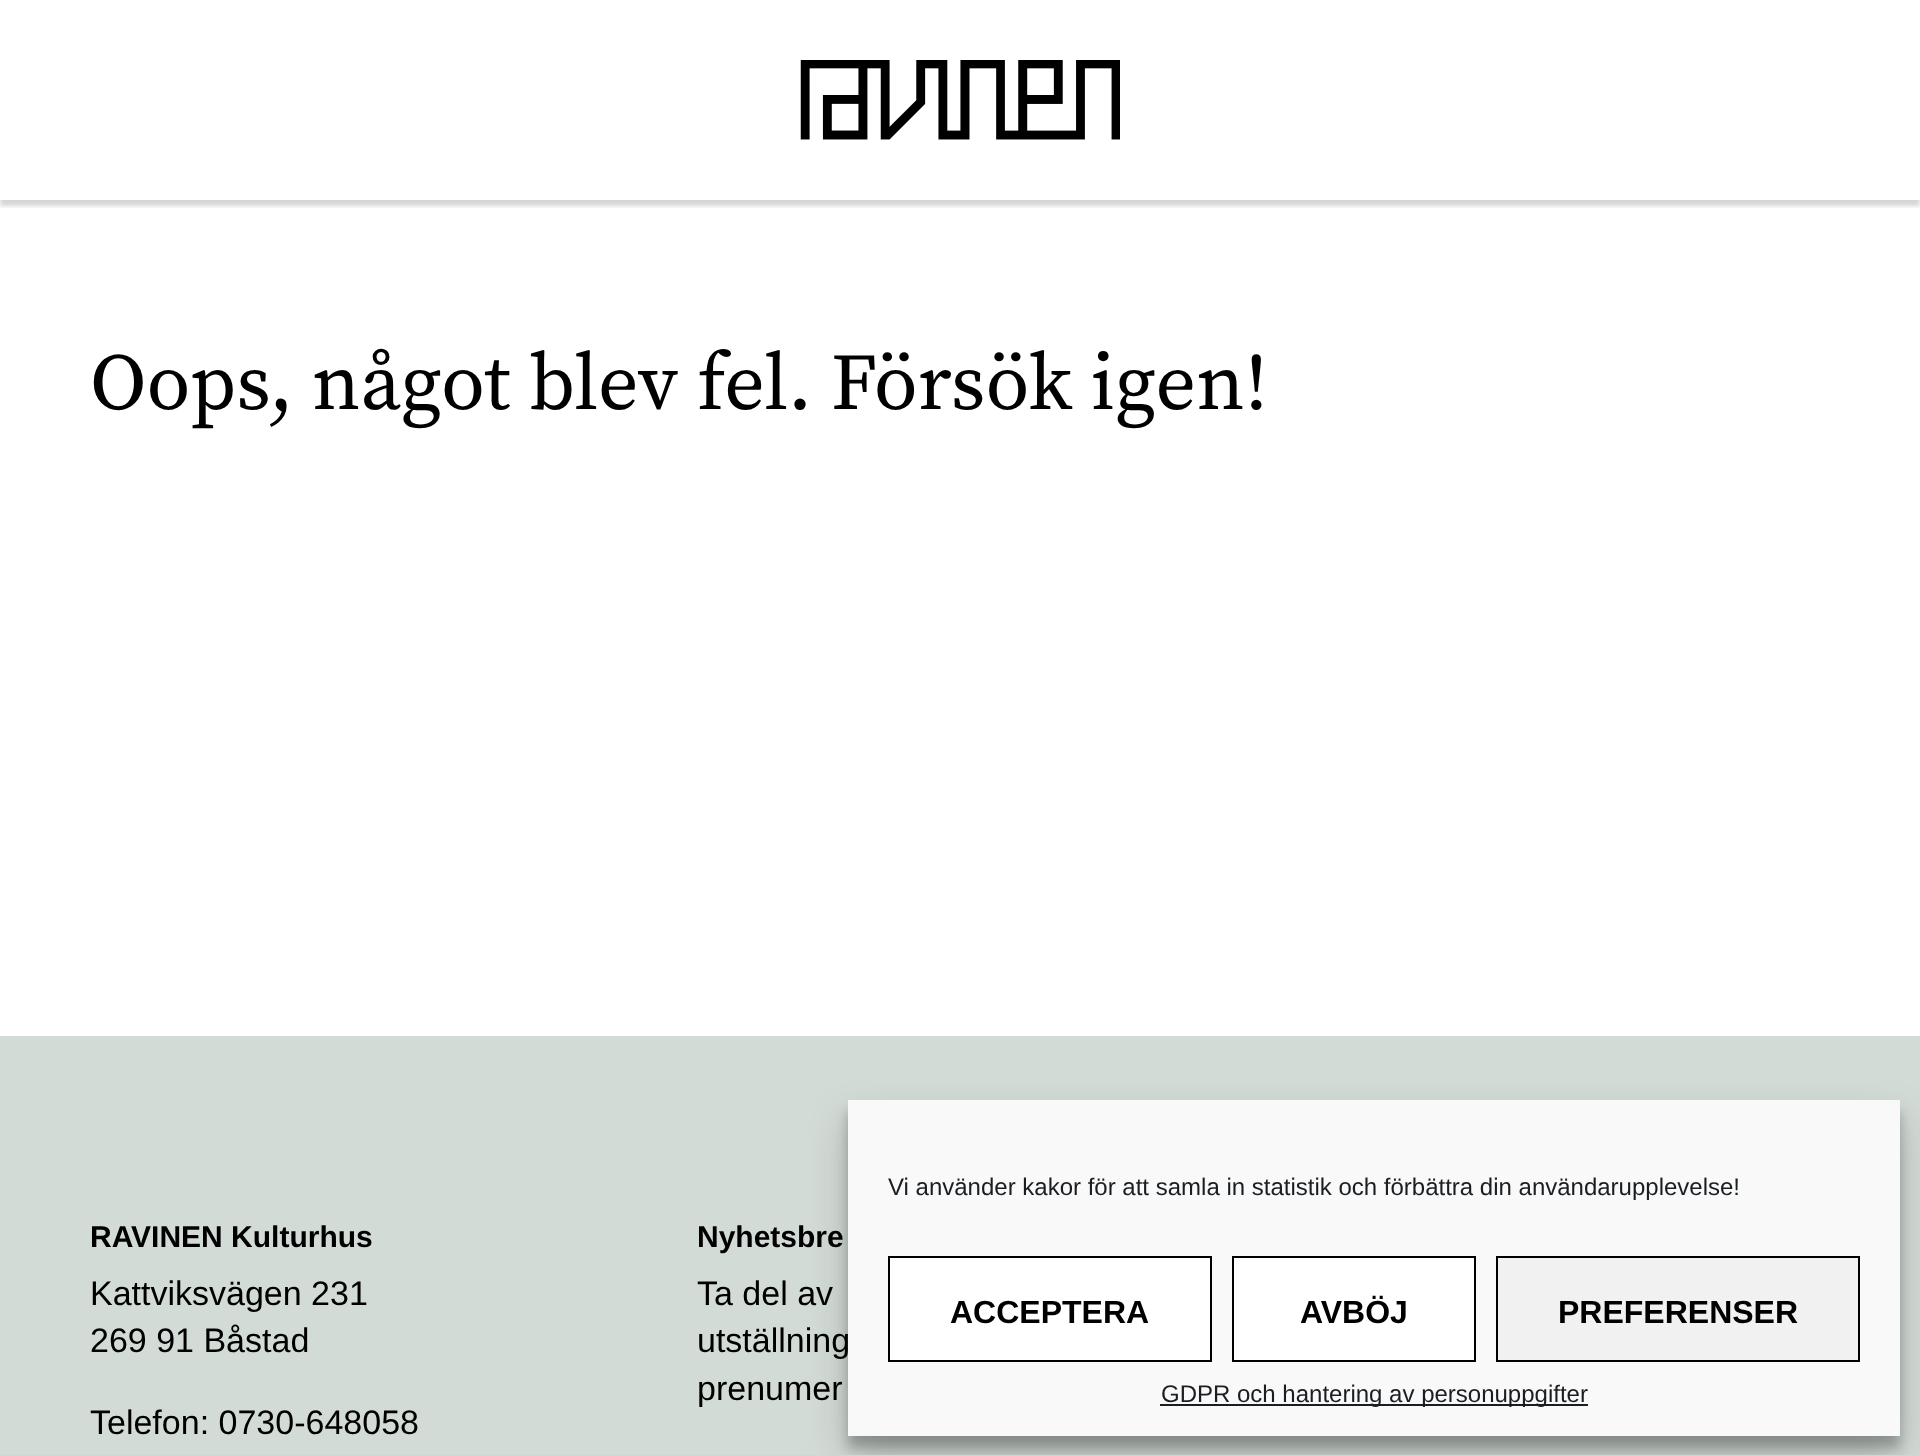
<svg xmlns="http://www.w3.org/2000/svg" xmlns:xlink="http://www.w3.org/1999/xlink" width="1920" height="1455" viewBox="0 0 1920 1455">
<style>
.cls-1{font:80px Source Serif Pro;fill:#000000}
.cls-2{font:bold 30px Liberation Sans;fill:#000000}
.cls-3{font:34px Liberation Sans;fill:#000000}
.cls-4{font:24px Liberation Sans;fill:#191e23}
.cls-5{font:bold 32px Liberation Sans;fill:#000000}
</style>
<defs>
<clipPath id="clip1"><rect x="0" y="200" width="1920" height="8"/></clipPath>
</defs>
<rect width="100%" height="100%" fill="#ffffff"/>
<g clip-path="url(#clip1)">
<rect fill="#000000" fill-opacity="0.16" filter="blur(2px)" x="0" y="6" width="1920" height="200"/>
</g>
<image xlink:href="image0.png" x="800" y="60" width="320" height="80"/>
<rect fill="#d3dbd6" x="0" y="1036" width="1920" height="419"/>
<rect fill="#000000" fill-opacity="0.23" filter="blur(6px)" x="848" y="1112" width="1052" height="336"/>
<rect fill="#000000" fill-opacity="0.19" filter="blur(20px)" x="848" y="1120" width="1052" height="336"/>
<rect fill="#f9f9f9" x="848" y="1100" width="1052" height="336"/>
<rect fill="#ffffff" stroke="#000000" stroke-width="2" x="889" y="1257" width="322" height="104"/>
<rect fill="#ffffff" stroke="#000000" stroke-width="2" x="1233" y="1257" width="242" height="104"/>
<rect fill="#f1f1f1" stroke="#000000" stroke-width="2" x="1497" y="1257" width="362" height="104"/>
<rect fill="#191e23" x="1160" y="1404" width="428" height="2"/>
<text class="cls-1" x="90" y="409">Oops, något blev fel. Försök igen!</text>
<text class="cls-2" x="90" y="1247">RAVINEN Kulturhus</text>
<text class="cls-3"><tspan x="90" y="1305">Kattviksvägen 231</tspan><tspan x="90" y="1352">269 91 Båstad</tspan></text>
<text class="cls-3" x="90" y="1434">Telefon: 0730-648058</text>
<text class="cls-2" x="697" y="1247">Nyhetsbre</text>
<text class="cls-3"><tspan x="697" y="1305">Ta del av</tspan><tspan x="697" y="1352">utställning</tspan><tspan x="697" y="1400">prenumer</tspan></text>
<text class="cls-4" x="888" y="1195">Vi använder kakor för att samla in statistik och förbättra din användarupplevelse!</text>
<text class="cls-5" x="950" y="1323">ACCEPTERA</text>
<text class="cls-5" x="1300" y="1323">AVBÖJ</text>
<text class="cls-5" x="1558" y="1323">PREFERENSER</text>
<text class="cls-4" x="1161" y="1402">GDPR och hantering av personuppgifter</text>
</svg>
